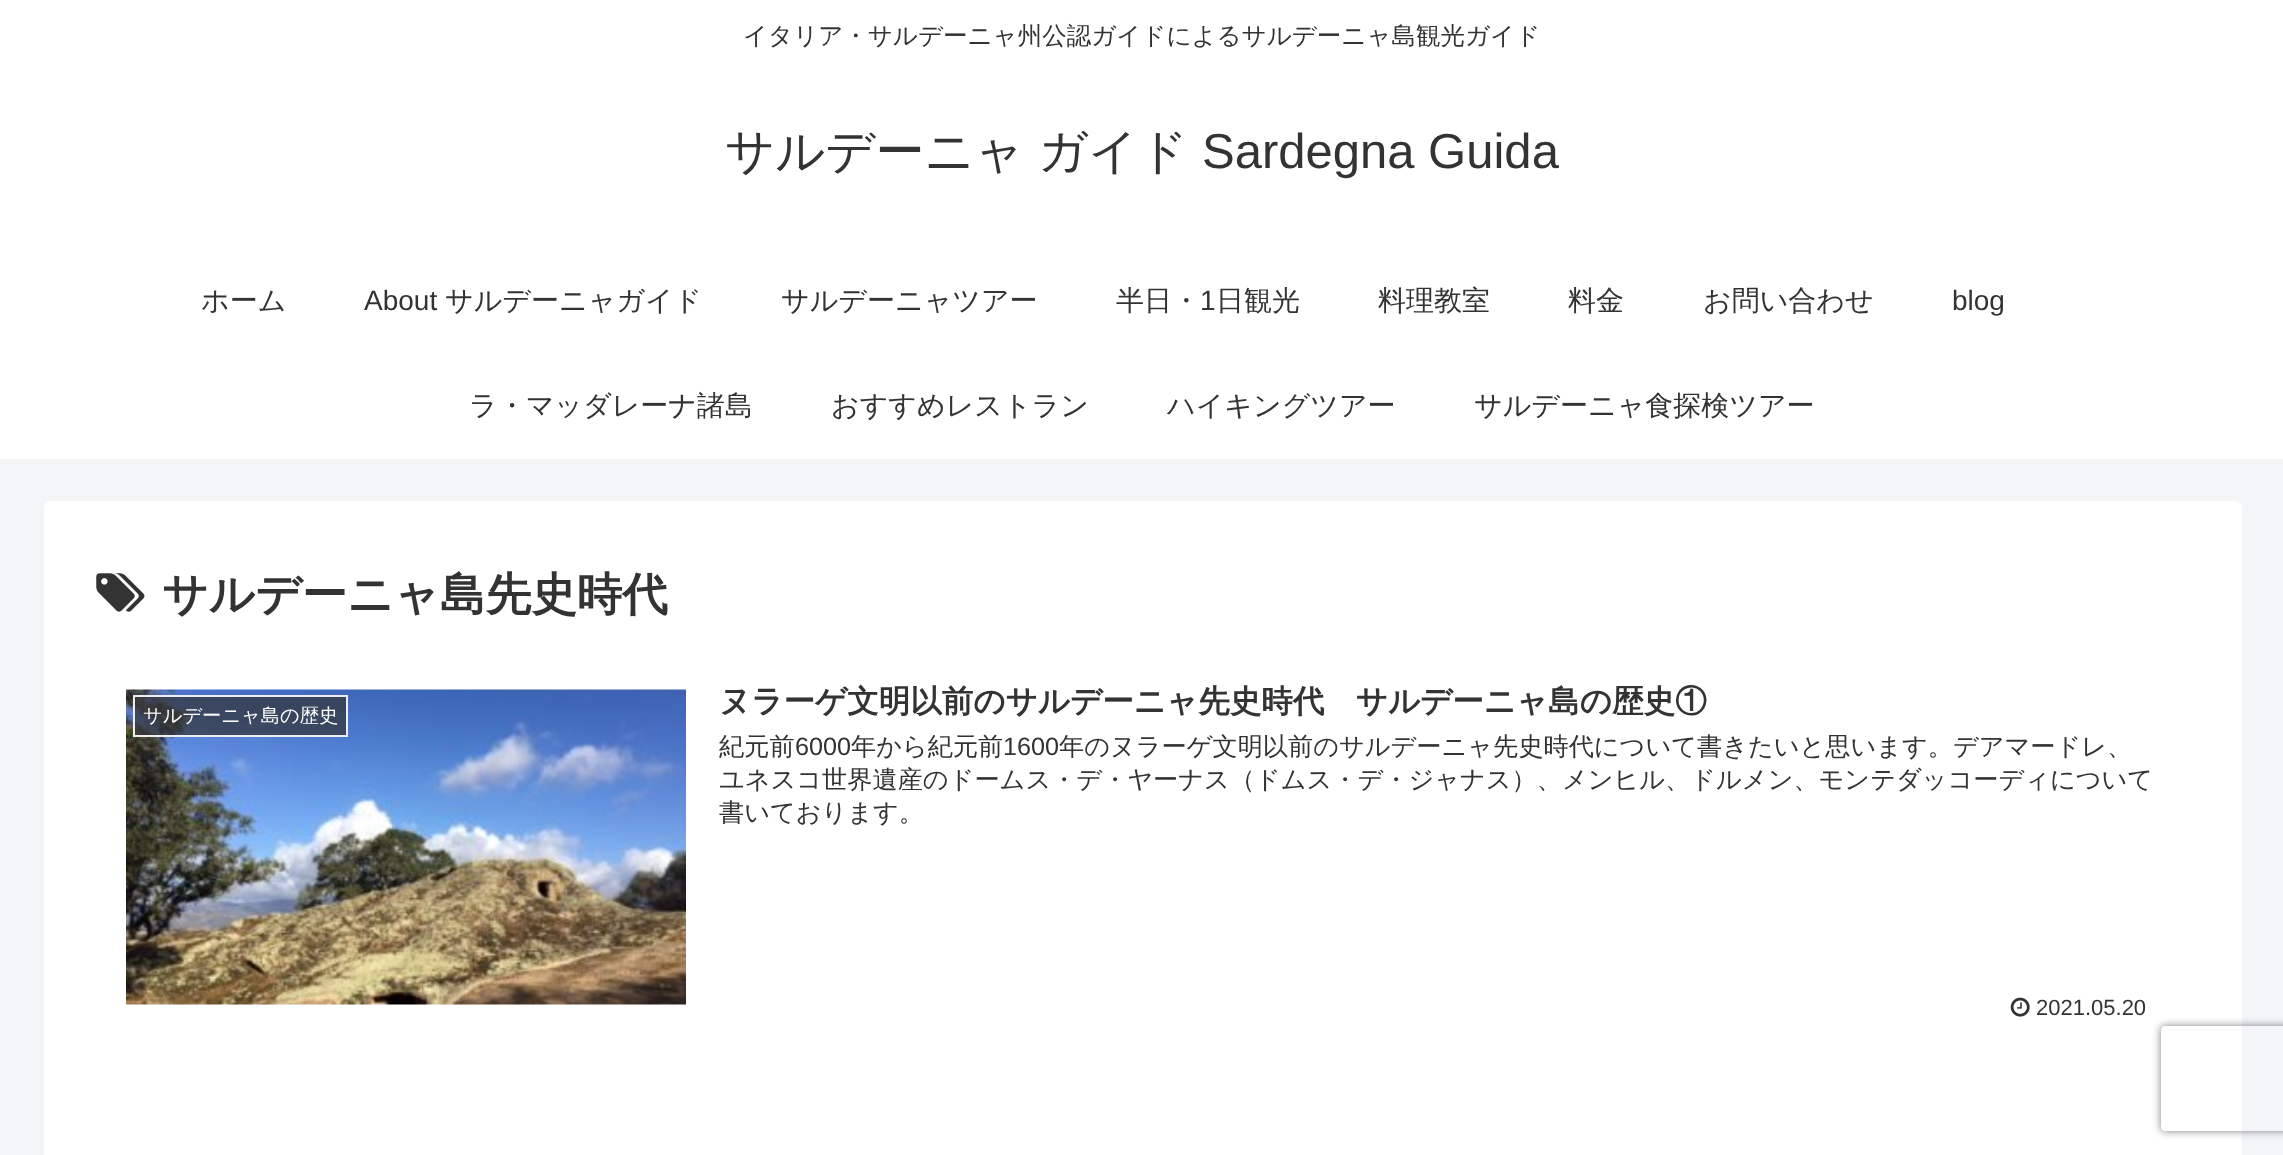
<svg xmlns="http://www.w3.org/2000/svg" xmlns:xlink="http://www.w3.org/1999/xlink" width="2283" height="1155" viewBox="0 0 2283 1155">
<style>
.cls-1{font:500 24.5px WenQuanYi Zen Hei;fill:#333333}
.cls-2{font:500 49px WenQuanYi Zen Hei;fill:#333333}
.cls-3{font:49px Liberation Sans;fill:#333333}
.cls-4{font:500 28px WenQuanYi Zen Hei;fill:#333333}
.cls-5{font:28px Liberation Sans;fill:#333333}
.cls-6{font:bold 45.5px WenQuanYi Zen Hei;fill:#333333}
.cls-7{font:500 19.25px WenQuanYi Zen Hei;fill:#ffffff}
.cls-8{font:bold 31.5px WenQuanYi Zen Hei;fill:#333333}
.cls-9{font:500 25.2px WenQuanYi Zen Hei;fill:#333333}
.cls-10{font:25.2px Liberation Sans;fill:#333333}
.cls-11{font:22px Liberation Sans;fill:#333333}
</style>
<defs>
<clipPath id="clip1"><path d="M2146 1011H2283V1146H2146ZM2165 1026H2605C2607 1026 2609 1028 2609 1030V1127C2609 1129 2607 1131 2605 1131H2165C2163 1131 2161 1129 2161 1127V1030C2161 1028 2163 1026 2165 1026Z" clip-rule="evenodd"/></clipPath>
</defs>
<rect width="100%" height="100%" fill="#f4f5f7"/>
<rect fill="#ffffff" x="0" y="0" width="2283" height="459"/>
<rect fill="#ffffff" x="44" y="501" width="2198" height="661" rx="7"/>
<image xlink:href="image0.png" x="96" y="573" width="49" height="39"/>
<image xlink:href="image1.png" x="126" y="689" width="560" height="316"/>
<rect fill="#333333" fill-opacity="0.7" stroke="#eeeeee" stroke-width="2" x="134" y="696" width="213" height="40"/>
<image xlink:href="image2.png" x="2010" y="997" width="20" height="20"/>
<g clip-path="url(#clip1)">
<rect fill="#808080" filter="blur(4.5px)" x="2161" y="1026" width="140" height="105" rx="4"/>
</g>
<text class="cls-1" x="743" y="44">イタリア・サルデーニャ州公認ガイドによるサルデーニャ島観光ガイド</text>
<text class="cls-2" x="725" y="168">サルデーニャ</text>
<text class="cls-2" x="1038" y="168">ガイド</text>
<text class="cls-3" x="1202" y="168">Sardegna Guida</text>
<text class="cls-4" x="201" y="310">ホーム</text>
<text class="cls-5" x="364" y="310">About</text>
<text class="cls-4" x="445" y="310">サルデーニャガイド</text>
<text class="cls-4" x="781" y="310">サルデーニャツアー</text>
<text class="cls-4" x="1116" y="310">半日・</text>
<text class="cls-5" x="1200" y="310">1</text>
<text class="cls-4" x="1216" y="310">日観光</text>
<text class="cls-4" x="1378" y="310">料理教室</text>
<text class="cls-4" x="1568" y="310">料金</text>
<text class="cls-4" x="1703" y="310">お問い合わせ</text>
<text class="cls-5" x="1952" y="310">blog</text>
<text class="cls-4" x="469" y="415">ラ・マッダレーナ諸島</text>
<text class="cls-4" x="831" y="415">おすすめレストラン</text>
<text class="cls-4" x="1167" y="415">ハイキングツアー</text>
<text class="cls-4" x="1474" y="415">サルデーニャ食探検ツアー</text>
<text class="cls-6" x="162" y="610">サルデーニャ島先史時代</text>
<text class="cls-7" x="143" y="722">サルデーニャ島の歴史</text>
<text class="cls-8" x="719" y="712">ヌラーゲ文明以前のサルデーニャ先史時代　サルデーニャ島の歴史①</text>
<text class="cls-9" x="719" y="755">紀元前</text>
<text class="cls-10" x="795" y="755">6000</text>
<text class="cls-9" x="851" y="755">年から紀元前</text>
<text class="cls-10" x="1003" y="755">1600</text>
<text class="cls-9" x="1059" y="755">年のヌラーゲ文明以前のサルデーニャ先史時代について書きたいと思います。デアマードレ、</text>
<text class="cls-9"><tspan x="719" y="788">ユネスコ世界遺産のドームス・デ・ヤーナス（ドムス・デ・ジャナス）、メンヒル、ドルメン、モンテダッコーディについて</tspan><tspan x="719" y="821">書いております。</tspan></text>
<text class="cls-11" x="2036" y="1015">2021.05.20</text>
</svg>
